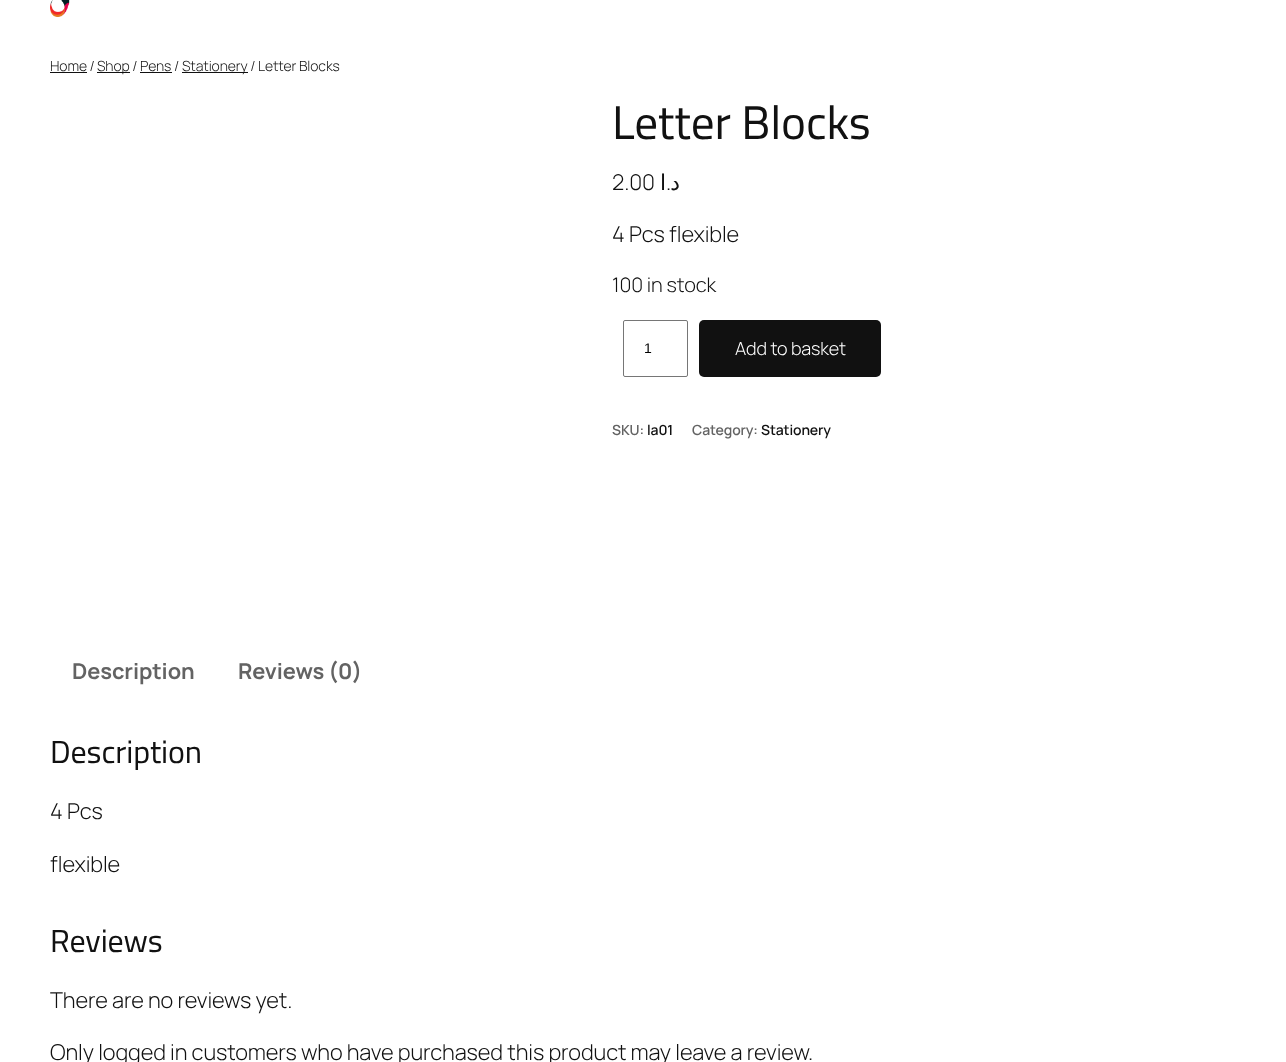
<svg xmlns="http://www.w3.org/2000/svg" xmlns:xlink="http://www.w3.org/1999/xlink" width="1286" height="1062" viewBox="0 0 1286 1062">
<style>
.cls-1{font:300 14px Manrope;letter-spacing:-0.1px;fill:#111111}
.cls-2{font:47.25px Cairo Play;letter-spacing:-0.1px;fill:#111111}
.cls-3{font:300 21.8px Manrope;letter-spacing:-0.1px;fill:#111111}
.cls-4{font:21.8px DejaVu Sans;letter-spacing:-0.1px;direction:rtl;fill:#111111}
.cls-5{font:300 21.8px Manrope;letter-spacing:-0.1px;direction:rtl;fill:#111111}
.cls-6{font:300 20px Manrope;letter-spacing:-0.1px;fill:#111111}
.cls-7{font:14px Liberation Sans;fill:#000000}
.cls-8{font:300 18px Manrope;letter-spacing:-0.1px;fill:#ffffff}
.cls-9{font:600 14px Manrope;letter-spacing:-0.1px;fill:#636363}
.cls-10{font:600 14px Manrope;letter-spacing:-0.1px;fill:#111111}
.cls-11{font:bold 21.8px Manrope;letter-spacing:-0.1px;fill:#636363}
.cls-12{font:32px Cairo Play;letter-spacing:-0.1px;fill:#111111}
</style>
<rect width="100%" height="100%" fill="#ffffff"/>
<image xlink:href="image0.png" x="50" y="0" width="20" height="17"/>
<rect fill="#111111" x="50" y="72" width="37" height="1"/>
<rect fill="#111111" x="97" y="72" width="33" height="1"/>
<rect fill="#111111" x="182" y="72" width="66" height="1"/>
<rect fill="#111111" x="140" y="72" width="32" height="1"/>
<rect fill="none" stroke="#767676" x="623.5" y="320.5" width="64" height="56" rx="1.5"/>
<rect fill="#111111" x="699" y="320" width="182" height="57" rx="5"/>
<text class="cls-1" x="50" y="71">Home /</text>
<text class="cls-1" x="97" y="71">Shop / Pens /</text>
<text class="cls-1" x="182" y="71">Stationery / Letter Blocks</text>
<text class="cls-2" x="612" y="139">Letter Blocks</text>
<text class="cls-3" x="612" y="190">2.00</text>
<text class="cls-4" x="666" y="190">ا</text>
<text class="cls-5" x="671" y="190">.</text>
<text class="cls-4" x="680" y="190">د</text>
<text class="cls-3" x="612" y="242">4 Pcs flexible</text>
<text class="cls-6" x="612" y="292">100 in stock</text>
<text class="cls-7" x="644" y="353">1</text>
<text class="cls-8" x="735" y="355">Add to basket</text>
<text class="cls-9" x="612" y="435">SKU:</text>
<text class="cls-10" x="647" y="435">la01</text>
<text class="cls-9" x="692" y="435">Category:</text>
<text class="cls-10" x="761" y="435">Stationery</text>
<text class="cls-11" x="72" y="679">Description</text>
<text class="cls-11" x="238" y="679">Reviews (0)</text>
<text class="cls-12" x="50" y="763">Description</text>
<text class="cls-3" x="50" y="819">4 Pcs</text>
<text class="cls-3" x="50" y="872">flexible</text>
<text class="cls-12" x="50" y="952">Reviews</text>
<text class="cls-3" x="50" y="1008">There are no reviews yet.</text>
<text class="cls-3" x="50" y="1060">Only logged in customers who have purchased this product may leave a review.</text>
</svg>
